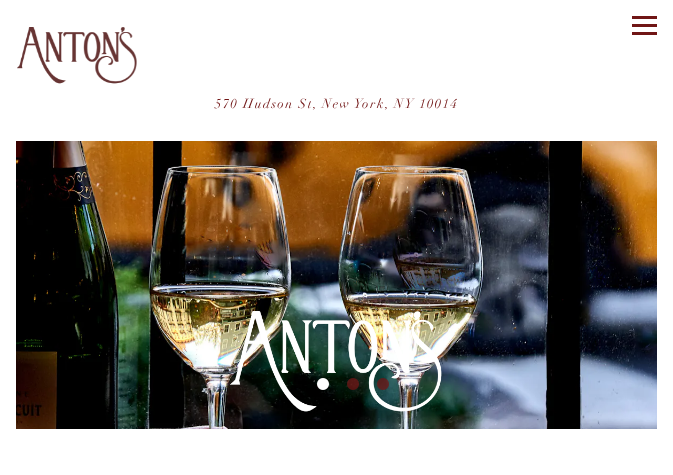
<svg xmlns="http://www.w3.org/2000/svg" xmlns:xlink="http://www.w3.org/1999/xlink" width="673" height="475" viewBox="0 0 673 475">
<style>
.cls-1{font:italic 13px Didot;letter-spacing:1.5px;fill:#701515}
</style>
<rect width="100%" height="100%" fill="#ffffff"/>
<image xlink:href="image0.png" x="17" y="27" width="120" height="57"/>
<rect fill="#701515" x="632" y="16" width="25" height="3"/>
<rect fill="#701515" x="632" y="24" width="25" height="3"/>
<rect fill="#701515" x="632" y="32" width="25" height="3"/>
<image xlink:href="image1.png" x="16" y="141" width="641" height="288"/>
<image xlink:href="image2.png" x="317" y="378" width="12" height="12"/>
<image xlink:href="image3.png" x="347" y="378" width="12" height="12"/>
<image xlink:href="image4.png" x="377" y="378" width="12" height="12"/>
<image xlink:href="image5.png" x="230" y="311" width="212" height="101"/>
<text class="cls-1" x="215" y="108">570 Hudson St,</text>
<text class="cls-1" x="322" y="108">New York, NY 10014</text>
</svg>
